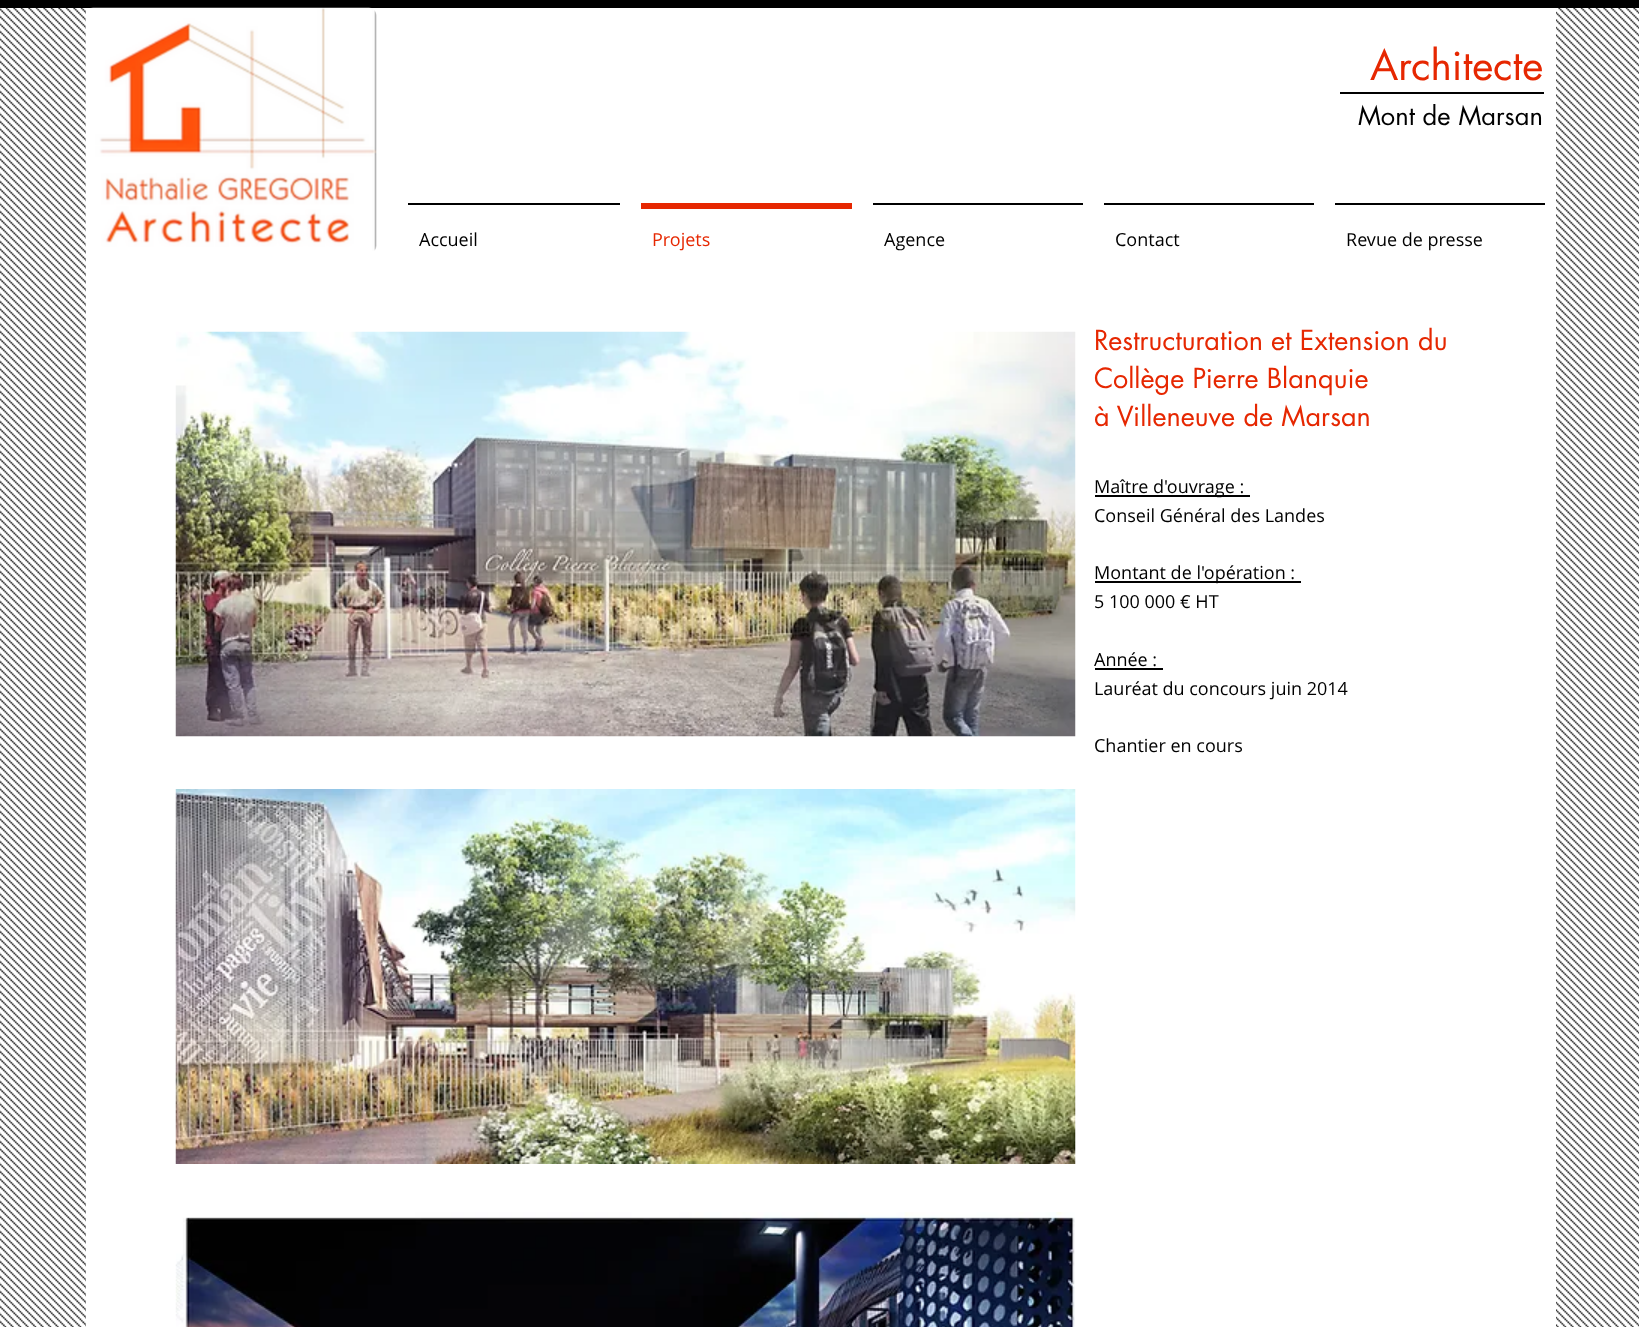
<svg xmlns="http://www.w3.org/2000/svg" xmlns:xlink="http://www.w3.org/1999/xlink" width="1639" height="1327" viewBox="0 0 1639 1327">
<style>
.cls-1{font:40.5px futura;fill:#e62701}
.cls-2{font:25.5px futura;fill:#000000}
.cls-3{font:18px Open Sans;fill:#000000}
.cls-4{font:18px Open Sans;fill:#e62701}
.cls-5{font:27px futura;fill:#e62701}
</style>
<rect width="100%" height="100%" fill="#ffffff"/>
<image xlink:href="image0.png" x="0" y="8" width="1639" height="1319"/>
<rect fill="#000000" x="0" y="0" width="1639" height="8"/>
<rect fill="#ffffff" x="86" y="8" width="1470" height="1319"/>
<image xlink:href="image1.png" x="85" y="7" width="292" height="244"/>
<rect fill="#000000" x="1340" y="92" width="204" height="2"/>
<rect fill="#000000" x="408" y="203" width="212" height="2"/>
<rect fill="#e62701" x="641" y="203" width="211" height="6"/>
<rect fill="#000000" x="873" y="203" width="210" height="2"/>
<rect fill="#000000" x="1104" y="203" width="210" height="2"/>
<rect fill="#000000" x="1335" y="203" width="210" height="2"/>
<image xlink:href="image2.png" x="175" y="331" width="901" height="406"/>
<rect fill="#000000" x="1095" y="495" width="155" height="2"/>
<rect fill="#000000" x="1095" y="581" width="206" height="2"/>
<rect fill="#000000" x="1095" y="668" width="68" height="2"/>
<image xlink:href="image3.png" x="175" y="789" width="901" height="375"/>
<image xlink:href="image4.png" x="175" y="1212" width="900" height="115"/>
<text class="cls-1" x="1370" y="80">Architecte</text>
<text class="cls-2" x="1358" y="125">Mont de Marsan</text>
<text class="cls-3" x="419" y="246">Accueil</text>
<text class="cls-4" x="652" y="246">Projets</text>
<text class="cls-3" x="884" y="246">Agence</text>
<text class="cls-3" x="1115" y="246">Contact</text>
<text class="cls-3" x="1346" y="246">Revue de presse</text>
<text class="cls-5"><tspan x="1094" y="350">Restructuration et Extension du</tspan><tspan x="1094" y="388">Collège Pierre Blanquie</tspan><tspan x="1094" y="426">à Villeneuve de Marsan</tspan></text>
<text class="cls-3"><tspan x="1094" y="493">Maître d'ouvrage :</tspan><tspan x="1094" y="522">Conseil Général des Landes</tspan></text>
<text class="cls-3"><tspan x="1094" y="579">Montant de l'opération :</tspan><tspan x="1094" y="608">5 100 000 € HT</tspan></text>
<text class="cls-3"><tspan x="1094" y="666">Année :</tspan><tspan x="1094" y="695">Lauréat du concours juin 2014</tspan></text>
<text class="cls-3" x="1094" y="752">Chantier en cours</text>
</svg>
